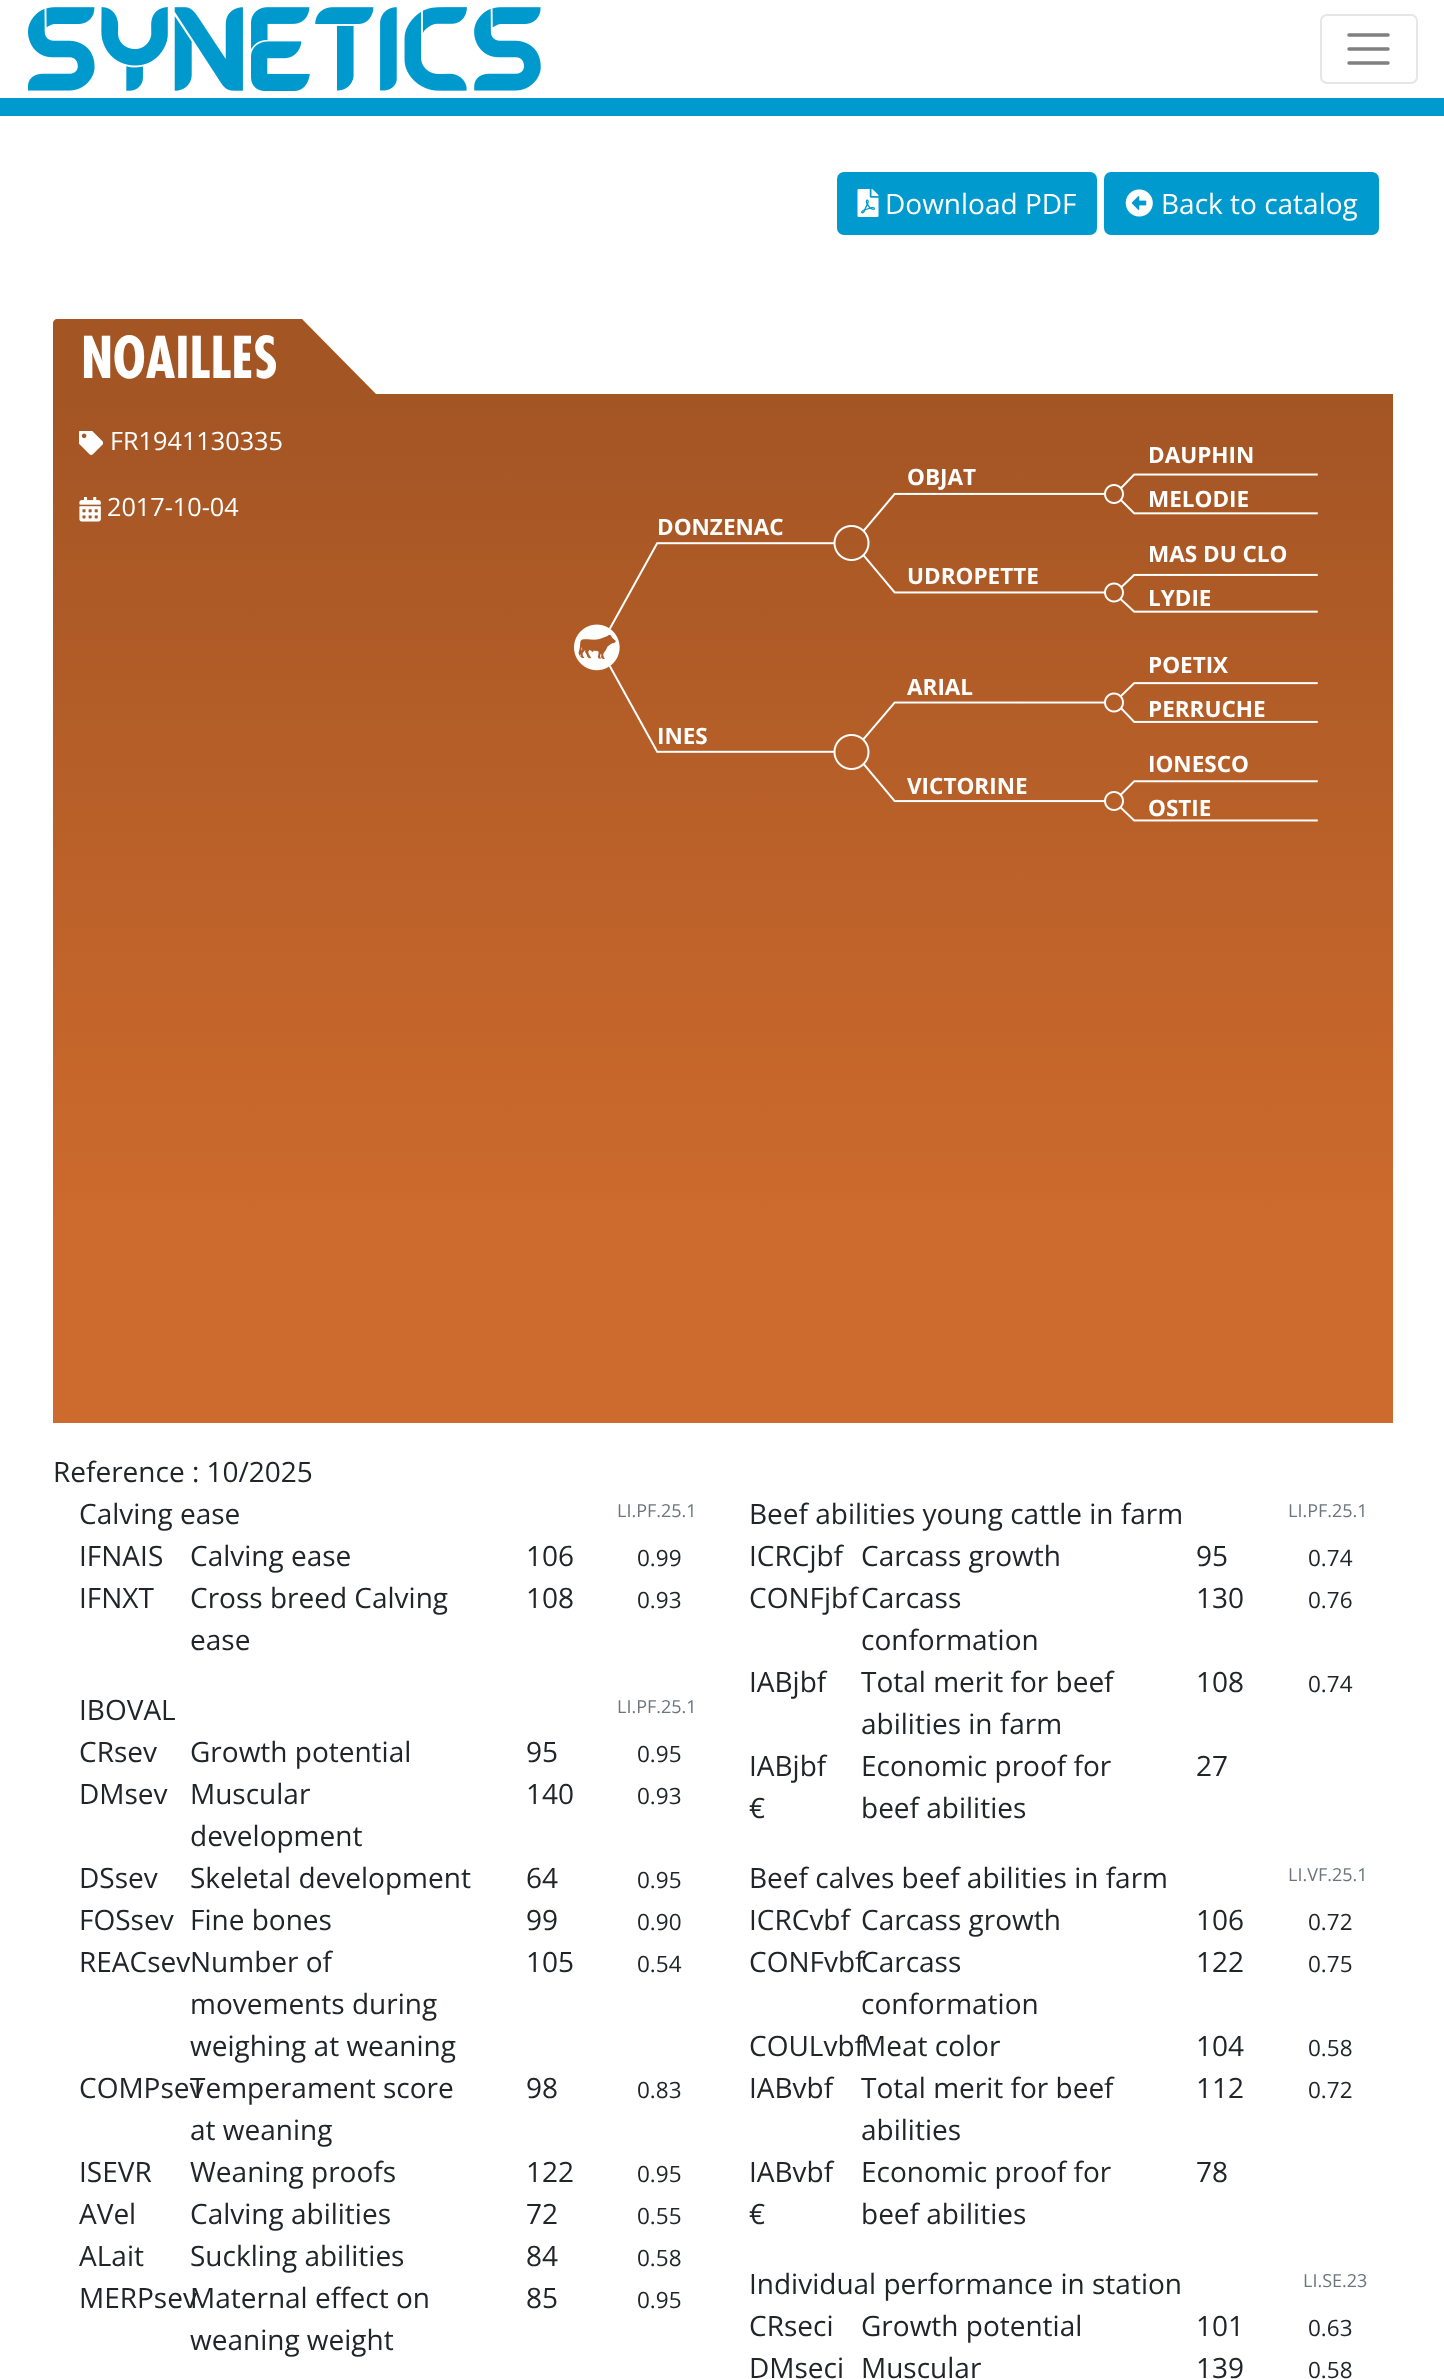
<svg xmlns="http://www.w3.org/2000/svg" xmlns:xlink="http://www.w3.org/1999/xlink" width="1444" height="2379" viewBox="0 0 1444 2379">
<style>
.cls-1{font:28px Open Sans;fill:#ffffff}
.cls-2{font:bold 56px Futura;fill:#ffffff}
.cls-3{font:25.25px Open Sans;fill:#ffffff}
.cls-4{font:bold 22.5px Open Sans;fill:#ffffff}
.cls-5{font:28px Open Sans;fill:#212529}
.cls-6{font:18px Open Sans;fill:#6c757d}
.cls-7{font:22.5px Open Sans;fill:#212529}
</style>
<defs>
<linearGradient id="g1" gradientUnits="userSpaceOnUse" x1="723" y1="394" x2="723" y2="1423"><stop offset="0" stop-color="#a35524"/><stop offset="0.8" stop-color="#cd6a2d"/></linearGradient>
</defs>
<rect width="100%" height="100%" fill="#ffffff"/>
<rect fill="#009ace" x="0" y="98" width="1444" height="18"/>
<image xlink:href="image0.png" x="28" y="7" width="513" height="84"/>
<rect fill="none" stroke="#e6e6e6" stroke-width="2" x="1321" y="15" width="96" height="68" rx="6"/>
<path fill="none" stroke="#808080" stroke-width="3.5" stroke-linecap="round" d="M1349 35H1388M1349 49H1388M1349 63H1388"/>
<rect fill="#009ace" x="837" y="172" width="260" height="63" rx="7"/>
<image xlink:href="image1.png" x="857" y="189" width="22" height="28"/>
<rect fill="#009ace" x="1104" y="172" width="275" height="63" rx="7"/>
<image xlink:href="image2.png" x="1125" y="189" width="28" height="28"/>
<path fill="#a35524" d="M57 319H372C374 319 376 321 376 323V394H53V323C53 321 55 319 57 319Z"/>
<path fill="#ffffff" d="M376 318V394L301 318Z"/>
<rect fill="url(#g1)" x="53" y="394" width="1340" height="1029"/>
<image xlink:href="image3.png" x="79" y="431" width="24" height="24"/>
<image xlink:href="image4.png" x="79" y="497" width="22" height="25"/>
<image xlink:href="image5.png" x="574" y="473" width="744" height="349"/>
<text class="cls-1" x="885" y="214">Download PDF</text>
<text class="cls-1" x="1161" y="214">Back to catalog</text>
<text class="cls-2" x="81" y="378">NOAILLES</text>
<text class="cls-3" x="110" y="450">FR1941130335</text>
<text class="cls-3" x="107" y="516">2017-10-04</text>
<text class="cls-4" x="657" y="535">DONZENAC</text>
<text class="cls-4" x="907" y="485">OBJAT</text>
<text class="cls-4"><tspan x="1148" y="463">DAUPHIN</tspan><tspan x="1148" y="507">MELODIE</tspan></text>
<text class="cls-4" x="907" y="584">UDROPETTE</text>
<text class="cls-4"><tspan x="1148" y="562">MAS DU CLO</tspan><tspan x="1148" y="606">LYDIE</tspan></text>
<text class="cls-4" x="657" y="744">INES</text>
<text class="cls-4" x="907" y="695">ARIAL</text>
<text class="cls-4"><tspan x="1148" y="673">POETIX</tspan><tspan x="1148" y="717">PERRUCHE</tspan></text>
<text class="cls-4" x="907" y="794">VICTORINE</text>
<text class="cls-4"><tspan x="1148" y="772">IONESCO</tspan><tspan x="1148" y="816">OSTIE</tspan></text>
<text class="cls-5" x="53" y="1482">Reference : 10/2025</text>
<text class="cls-5" x="79" y="1524">Calving ease</text>
<text class="cls-6" x="617" y="1517">LI.PF.25.1</text>
<text class="cls-5" x="79" y="1566">IFNAIS</text>
<text class="cls-5" x="190" y="1566">Calving ease</text>
<text class="cls-5" x="526" y="1566">106</text>
<text class="cls-7" x="637" y="1566">0.99</text>
<text class="cls-5" x="79" y="1608">IFNXT</text>
<text class="cls-5"><tspan x="190" y="1608">Cross breed Calving</tspan><tspan x="190" y="1650">ease</tspan></text>
<text class="cls-5" x="526" y="1608">108</text>
<text class="cls-7" x="637" y="1608">0.93</text>
<text class="cls-5" x="79" y="1720">IBOVAL</text>
<text class="cls-6" x="617" y="1713">LI.PF.25.1</text>
<text class="cls-5" x="79" y="1762">CRsev</text>
<text class="cls-5" x="190" y="1762">Growth potential</text>
<text class="cls-5" x="526" y="1762">95</text>
<text class="cls-7" x="637" y="1762">0.95</text>
<text class="cls-5" x="79" y="1804">DMsev</text>
<text class="cls-5"><tspan x="190" y="1804">Muscular</tspan><tspan x="190" y="1846">development</tspan></text>
<text class="cls-5" x="526" y="1804">140</text>
<text class="cls-7" x="637" y="1804">0.93</text>
<text class="cls-5" x="79" y="1888">DSsev</text>
<text class="cls-5" x="190" y="1888">Skeletal development</text>
<text class="cls-5" x="526" y="1888">64</text>
<text class="cls-7" x="637" y="1888">0.95</text>
<text class="cls-5" x="79" y="1930">FOSsev</text>
<text class="cls-5" x="190" y="1930">Fine bones</text>
<text class="cls-5" x="526" y="1930">99</text>
<text class="cls-7" x="637" y="1930">0.90</text>
<text class="cls-5" x="79" y="1972">REACsev</text>
<text class="cls-5"><tspan x="190" y="1972">Number of</tspan><tspan x="190" y="2014">movements during</tspan><tspan x="190" y="2056">weighing at weaning</tspan></text>
<text class="cls-5" x="526" y="1972">105</text>
<text class="cls-7" x="637" y="1972">0.54</text>
<text class="cls-5" x="79" y="2098">COMPsev</text>
<text class="cls-5"><tspan x="190" y="2098">Temperament score</tspan><tspan x="190" y="2140">at weaning</tspan></text>
<text class="cls-5" x="526" y="2098">98</text>
<text class="cls-7" x="637" y="2098">0.83</text>
<text class="cls-5" x="79" y="2182">ISEVR</text>
<text class="cls-5" x="190" y="2182">Weaning proofs</text>
<text class="cls-5" x="526" y="2182">122</text>
<text class="cls-7" x="637" y="2182">0.95</text>
<text class="cls-5" x="79" y="2224">AVel</text>
<text class="cls-5" x="190" y="2224">Calving abilities</text>
<text class="cls-5" x="526" y="2224">72</text>
<text class="cls-7" x="637" y="2224">0.55</text>
<text class="cls-5" x="79" y="2266">ALait</text>
<text class="cls-5" x="190" y="2266">Suckling abilities</text>
<text class="cls-5" x="526" y="2266">84</text>
<text class="cls-7" x="637" y="2266">0.58</text>
<text class="cls-5" x="79" y="2308">MERPsev</text>
<text class="cls-5"><tspan x="190" y="2308">Maternal effect on</tspan><tspan x="190" y="2350">weaning weight</tspan></text>
<text class="cls-5" x="526" y="2308">85</text>
<text class="cls-7" x="637" y="2308">0.95</text>
<text class="cls-5" x="749" y="1524">Beef abilities young cattle in farm</text>
<text class="cls-6" x="1288" y="1517">LI.PF.25.1</text>
<text class="cls-5" x="749" y="1566">ICRCjbf</text>
<text class="cls-5" x="861" y="1566">Carcass growth</text>
<text class="cls-5" x="1196" y="1566">95</text>
<text class="cls-7" x="1308" y="1566">0.74</text>
<text class="cls-5" x="749" y="1608">CONFjbf</text>
<text class="cls-5"><tspan x="861" y="1608">Carcass</tspan><tspan x="861" y="1650">conformation</tspan></text>
<text class="cls-5" x="1196" y="1608">130</text>
<text class="cls-7" x="1308" y="1608">0.76</text>
<text class="cls-5" x="749" y="1692">IABjbf</text>
<text class="cls-5"><tspan x="861" y="1692">Total merit for beef</tspan><tspan x="861" y="1734">abilities in farm</tspan></text>
<text class="cls-5" x="1196" y="1692">108</text>
<text class="cls-7" x="1308" y="1692">0.74</text>
<text class="cls-5"><tspan x="749" y="1776">IABjbf</tspan><tspan x="749" y="1818">€</tspan></text>
<text class="cls-5"><tspan x="861" y="1776">Economic proof for</tspan><tspan x="861" y="1818">beef abilities</tspan></text>
<text class="cls-5" x="1196" y="1776">27</text>
<text class="cls-5" x="749" y="1888">Beef calves beef abilities in farm</text>
<text class="cls-6" x="1288" y="1881">LI.VF.25.1</text>
<text class="cls-5" x="749" y="1930">ICRCvbf</text>
<text class="cls-5" x="861" y="1930">Carcass growth</text>
<text class="cls-5" x="1196" y="1930">106</text>
<text class="cls-7" x="1308" y="1930">0.72</text>
<text class="cls-5" x="749" y="1972">CONFvbf</text>
<text class="cls-5"><tspan x="861" y="1972">Carcass</tspan><tspan x="861" y="2014">conformation</tspan></text>
<text class="cls-5" x="1196" y="1972">122</text>
<text class="cls-7" x="1308" y="1972">0.75</text>
<text class="cls-5" x="749" y="2056">COULvbf</text>
<text class="cls-5" x="861" y="2056">Meat color</text>
<text class="cls-5" x="1196" y="2056">104</text>
<text class="cls-7" x="1308" y="2056">0.58</text>
<text class="cls-5" x="749" y="2098">IABvbf</text>
<text class="cls-5"><tspan x="861" y="2098">Total merit for beef</tspan><tspan x="861" y="2140">abilities</tspan></text>
<text class="cls-5" x="1196" y="2098">112</text>
<text class="cls-7" x="1308" y="2098">0.72</text>
<text class="cls-5"><tspan x="749" y="2182">IABvbf</tspan><tspan x="749" y="2224">€</tspan></text>
<text class="cls-5"><tspan x="861" y="2182">Economic proof for</tspan><tspan x="861" y="2224">beef abilities</tspan></text>
<text class="cls-5" x="1196" y="2182">78</text>
<text class="cls-5" x="749" y="2294">Individual performance in station</text>
<text class="cls-6" x="1303" y="2287">LI.SE.23</text>
<text class="cls-5" x="749" y="2336">CRseci</text>
<text class="cls-5" x="861" y="2336">Growth potential</text>
<text class="cls-5" x="1196" y="2336">101</text>
<text class="cls-7" x="1308" y="2336">0.63</text>
<text class="cls-5" x="749" y="2378">DMseci</text>
<text class="cls-5" x="861" y="2378">Muscular</text>
<text class="cls-5" x="1196" y="2378">139</text>
<text class="cls-7" x="1308" y="2378">0.58</text>
</svg>
